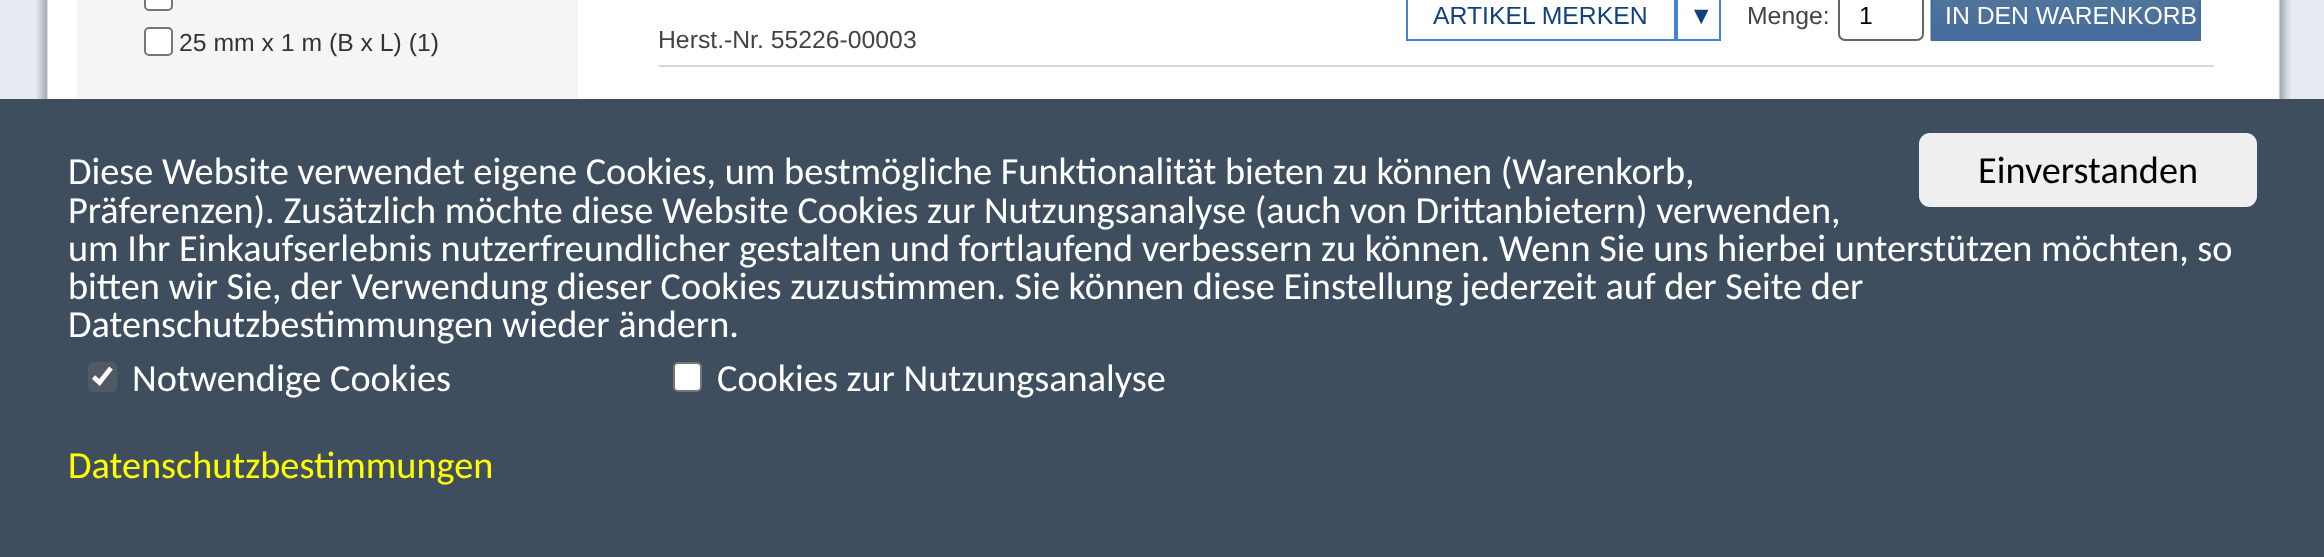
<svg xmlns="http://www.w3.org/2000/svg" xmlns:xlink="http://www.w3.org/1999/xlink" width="2324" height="557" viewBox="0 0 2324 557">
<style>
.cls-1{font:24.75px Liberation Sans;fill:#333333}
.cls-2{font:24.75px Liberation Sans;fill:#11407f}
.cls-3{font:24.75px Liberation Sans;fill:#444444}
.cls-4{font:24.75px Liberation Sans;fill:#000000}
.cls-5{font:24.75px Liberation Sans;fill:#ffffff}
.cls-6{font:38.25px Carlito;fill:#ffffff}
.cls-7{font:38.25px Carlito;fill:#000000}
.cls-8{font:38.25px Carlito;fill:#ffff00}
</style>
<rect width="100%" height="100%" fill="#e6eaf3"/>
<image xlink:href="image0.png" x="36" y="0" width="2255" height="99"/>
<rect fill="#f5f5f5" x="77" y="0" width="501" height="99"/>
<rect fill="#ffffff" stroke="#767676" stroke-width="2" x="145" y="-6" width="27" height="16" rx="4"/>
<rect fill="#ffffff" stroke="#767676" stroke-width="2" x="145" y="28" width="27" height="27" rx="4"/>
<rect fill="#d6d6d6" x="659" y="65" width="1555" height="2"/>
<rect fill="none" stroke="#4781d7" stroke-width="2" x="1407" y="-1" width="268" height="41"/>
<rect fill="none" stroke="#4781d7" stroke-width="2" x="1677" y="-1" width="43" height="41"/>
<rect fill="none" stroke="#666666" stroke-width="2" x="1839" y="-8" width="84" height="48" rx="6"/>
<image xlink:href="image1.png" x="1930" y="0" width="269" height="41"/>
<rect fill="none" stroke="#446b9c" stroke-width="2" x="1932" y="-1" width="268" height="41"/>
<rect fill="#3e4e5f" x="0" y="99" width="2324" height="458"/>
<rect fill="#efefef" x="1919" y="133" width="338" height="74" rx="11"/>
<rect fill="#4f5a66" x="88" y="362" width="29" height="30" rx="5"/>
<path fill="none" stroke="#ffffff" stroke-width="4.7" d="M93.5 377L99.5 382.5L111 368"/>
<rect fill="#ffffff" stroke="#767676" stroke-width="2" x="674" y="363" width="27" height="28" rx="4"/>
<text class="cls-1" x="179" y="51">25 mm x 1 m (B x L) (1)</text>
<text class="cls-2" x="1433" y="24">ARTIKEL MERKEN</text>
<text class="cls-2" x="1689" y="24">▼</text>
<text class="cls-3" x="658" y="48">Herst.-Nr. 55226-00003</text>
<text class="cls-3" x="1747" y="24">Menge:</text>
<text class="cls-4" x="1859" y="24">1</text>
<text class="cls-5" x="1945" y="24">IN DEN WARENKORB</text>
<text class="cls-6"><tspan x="68" y="184">Diese Website verwendet eigene Cookies, um bestmögliche Funktionalität bieten zu können (Warenkorb,</tspan><tspan x="68" y="223">Präferenzen). Zusätzlich möchte diese Website Cookies zur Nutzungsanalyse (auch von Drittanbietern) verwenden,</tspan><tspan x="68" y="261">um Ihr Einkaufserlebnis nutzerfreundlicher gestalten und fortlaufend verbessern zu können. Wenn Sie uns hierbei unterstützen möchten, so</tspan><tspan x="68" y="299">bitten wir Sie, der Verwendung dieser Cookies zuzustimmen. Sie können diese Einstellung jederzeit auf der Seite der</tspan><tspan x="68" y="337">Datenschutzbestimmungen wieder ändern.</tspan></text>
<text class="cls-7" x="1978" y="183">Einverstanden</text>
<text class="cls-6" x="132" y="391">Notwendige Cookies</text>
<text class="cls-6" x="717" y="391">Cookies zur Nutzungsanalyse</text>
<text class="cls-8" x="68" y="478">Datenschutzbestimmungen</text>
</svg>
